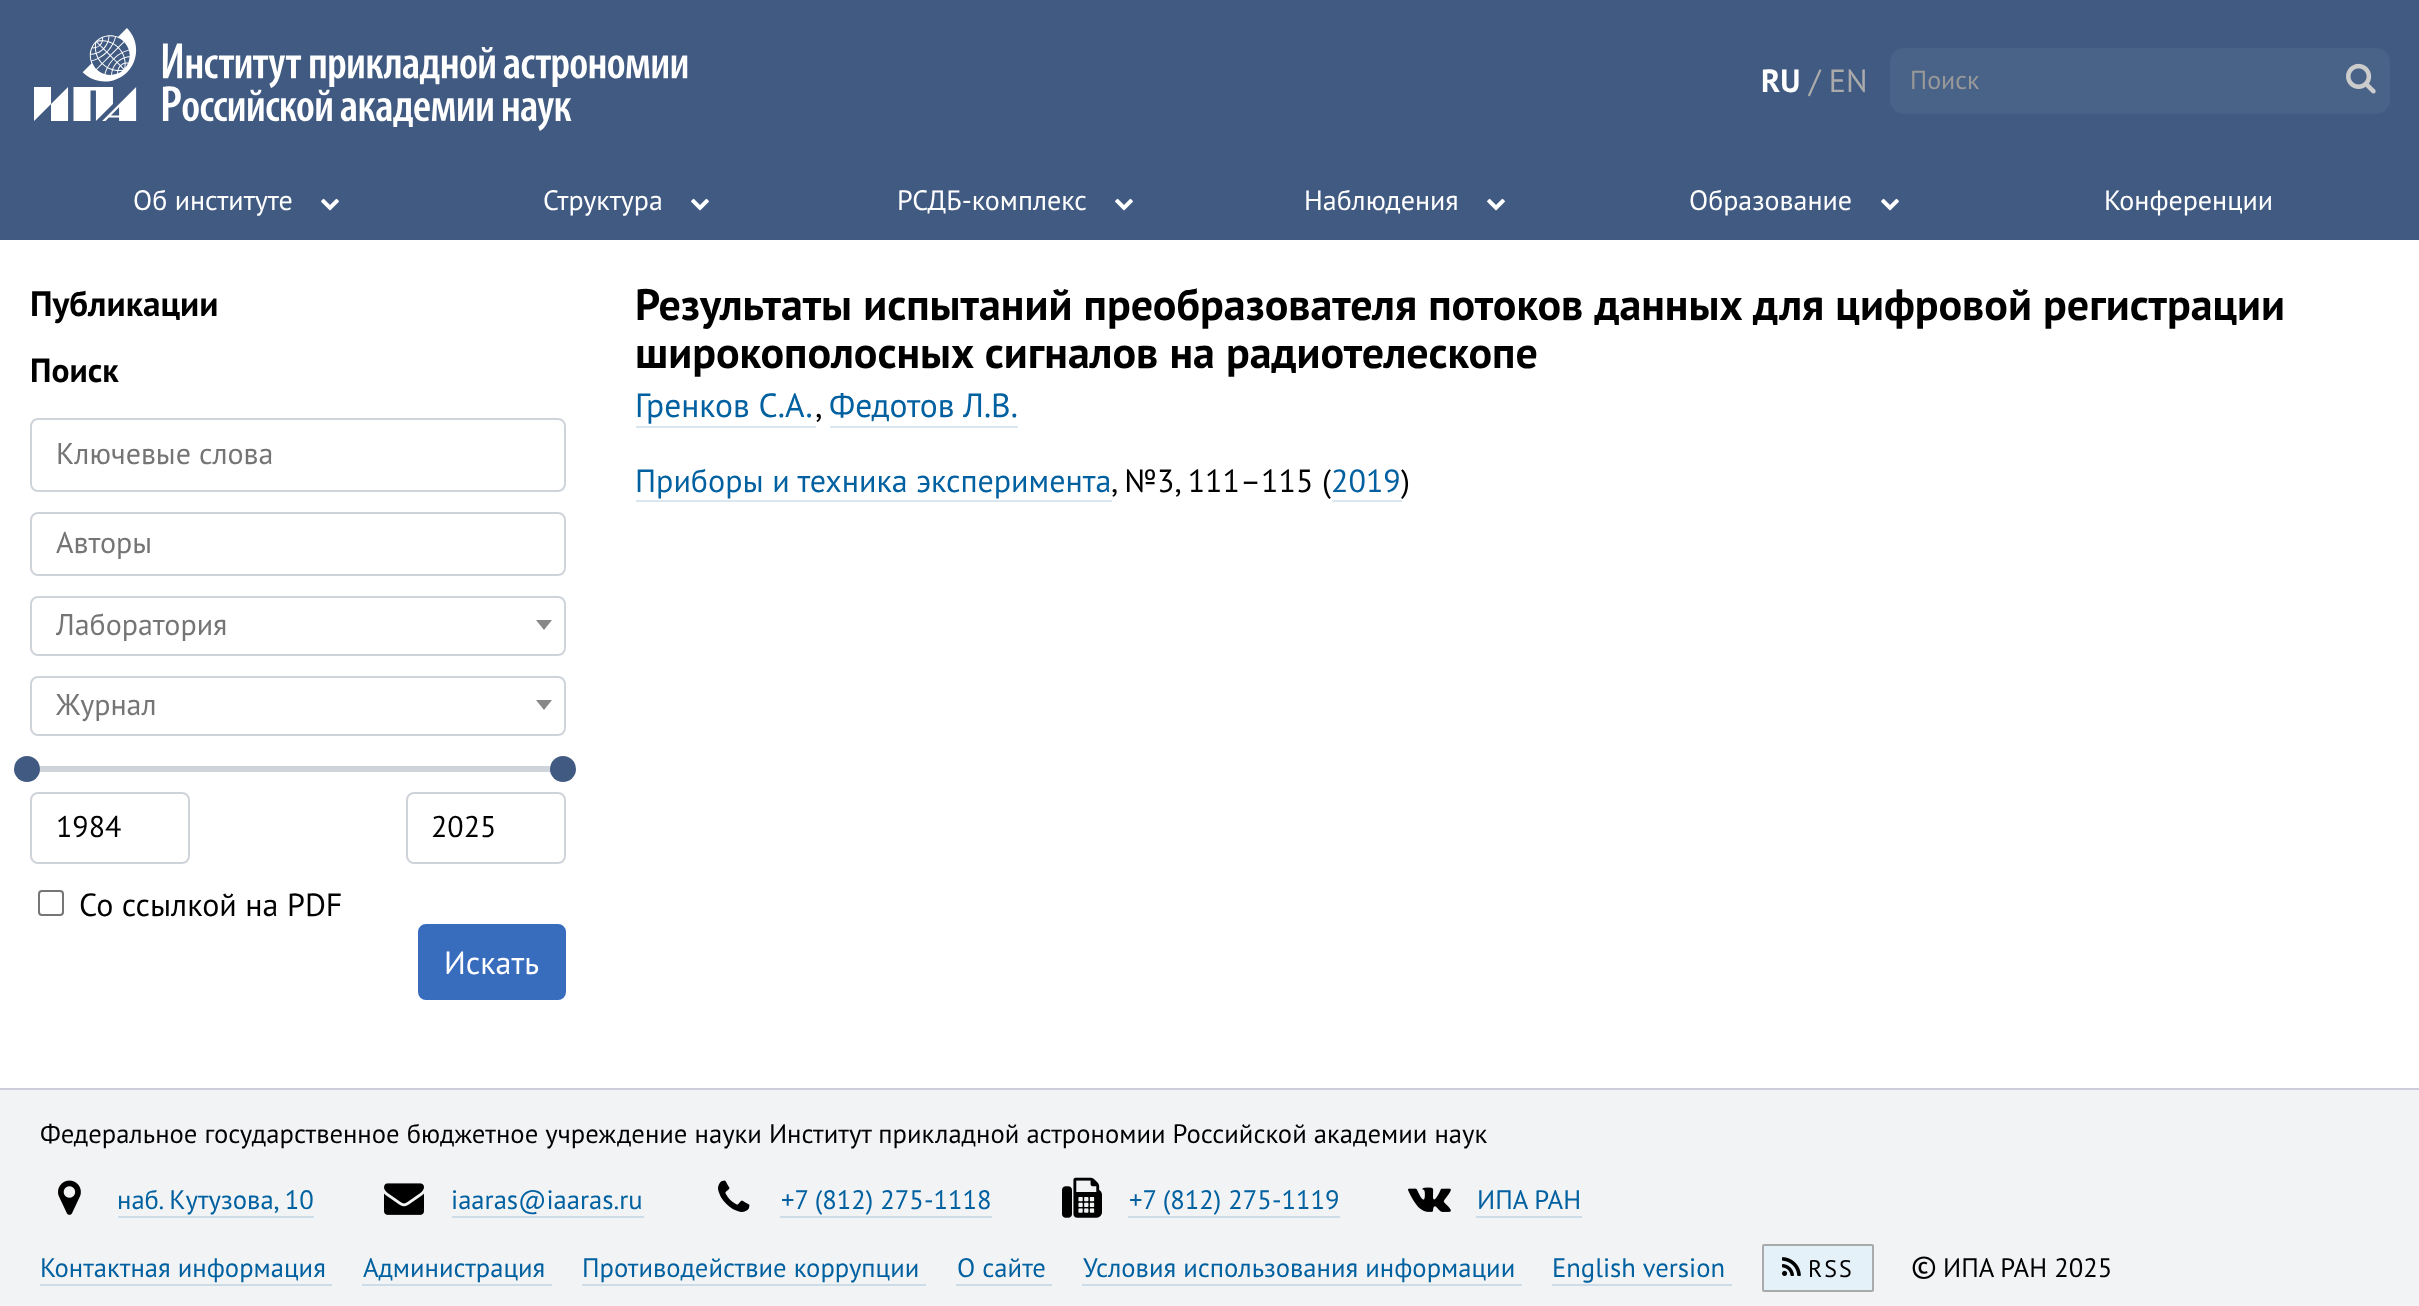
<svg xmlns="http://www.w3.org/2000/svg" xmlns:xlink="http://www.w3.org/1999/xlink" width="2419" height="1306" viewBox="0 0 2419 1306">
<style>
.cls-1{font:bold 32px PT Sans;fill:#ffffff}
.cls-2{font:32px PT Sans;fill:#aaaaaa}
.cls-3{font:26px PT Sans;fill:#999999}
.cls-4{font:28px PT Sans;fill:#ffffff}
.cls-5{font:bold 35.25px PT Sans;fill:#000000}
.cls-6{font:bold 33.5px PT Sans;fill:#000000}
.cls-7{font:30px PT Sans;fill:#757575}
.cls-8{font:30px PT Sans;fill:#000000}
.cls-9{font:32px PT Sans;fill:#000000}
.cls-10{font:32px PT Sans;fill:#ffffff}
.cls-11{font:bold 44px PT Sans;fill:#000000}
.cls-12{font:33.5px PT Sans;fill:#0060a0}
.cls-13{font:33.5px PT Sans;fill:#000000}
.cls-14{font:32px PT Sans;fill:#0060a0}
.cls-15{font:26.67px PT Sans;fill:#000000}
.cls-16{font:26.67px PT Sans;fill:#0060a0}
.cls-17{font:24px PT Sans;letter-spacing:2px;fill:#000000}
</style>
<rect width="100%" height="100%" fill="#ffffff"/>
<rect fill="#405a82" x="0" y="0" width="2419" height="240"/>
<image xlink:href="image0.png" x="34" y="28" width="654" height="103"/>
<rect fill="#496288" x="1890" y="48" width="500" height="66" rx="14"/>
<image xlink:href="image1.png" x="2346" y="63" width="30" height="31"/>
<image xlink:href="image2.png" x="321" y="198" width="18" height="13"/>
<image xlink:href="image2.png" x="691" y="198" width="18" height="13"/>
<image xlink:href="image2.png" x="1115" y="198" width="18" height="13"/>
<image xlink:href="image2.png" x="1487" y="198" width="18" height="13"/>
<image xlink:href="image2.png" x="1881" y="198" width="18" height="13"/>
<rect fill="none" stroke="#ced4da" stroke-width="2" x="31" y="419" width="534" height="72" rx="7"/>
<rect fill="none" stroke="#ced4da" stroke-width="2" x="31" y="513" width="534" height="62" rx="7"/>
<rect fill="none" stroke="#ced4da" stroke-width="2" x="31" y="597" width="534" height="58" rx="7"/>
<path fill="#888888" d="M536 620H552L544 630Z"/>
<rect fill="none" stroke="#ced4da" stroke-width="2" x="31" y="677" width="534" height="58" rx="7"/>
<path fill="#888888" d="M536 700H552L544 710Z"/>
<rect fill="#ced4da" x="39" y="766" width="512" height="6"/>
<circle fill="#405a82" cx="27" cy="769" r="13"/>
<circle fill="#405a82" cx="563" cy="769" r="13"/>
<rect fill="none" stroke="#ced4da" stroke-width="2" x="31" y="793" width="158" height="70" rx="7"/>
<rect fill="none" stroke="#ced4da" stroke-width="2" x="407" y="793" width="158" height="70" rx="7"/>
<rect fill="none" stroke="#767676" stroke-width="2" x="39" y="891" width="24" height="24" rx="3"/>
<rect fill="#386cbd" stroke="#386cbd" stroke-width="2" x="419" y="925" width="146" height="74" rx="7"/>
<rect fill="#d9e7f1" x="636" y="426" width="180" height="2"/>
<rect fill="#d9e7f1" x="830" y="426" width="188" height="2"/>
<rect fill="#d9e7f1" x="636" y="500" width="476" height="2"/>
<rect fill="#d9e7f1" x="1332" y="500" width="70" height="2"/>
<rect fill="#f1f3f4" x="0" y="1090" width="2419" height="216"/>
<rect fill="#ccccdd" x="0" y="1088" width="2419" height="2"/>
<image xlink:href="image3.png" x="58" y="1180" width="23" height="35"/>
<rect fill="#cddde7" x="118" y="1216" width="196" height="2"/>
<image xlink:href="image4.png" x="384" y="1183" width="40" height="32"/>
<rect fill="#cddde7" x="452" y="1216" width="192" height="2"/>
<image xlink:href="image5.png" x="718" y="1180" width="32" height="32"/>
<rect fill="#cddde7" x="780" y="1216" width="212" height="2"/>
<image xlink:href="image6.png" x="1062" y="1177" width="40" height="41"/>
<rect fill="#cddde7" x="1128" y="1216" width="212" height="2"/>
<image xlink:href="image7.png" x="1408" y="1187" width="43" height="25"/>
<rect fill="#cddde7" x="1476" y="1216" width="106" height="2"/>
<rect fill="#cddde7" x="40" y="1284" width="292" height="2"/>
<rect fill="#cddde7" x="362" y="1284" width="190" height="2"/>
<rect fill="#cddde7" x="582" y="1284" width="344" height="2"/>
<rect fill="#cddde7" x="956" y="1284" width="96" height="2"/>
<rect fill="#cddde7" x="1082" y="1284" width="440" height="2"/>
<rect fill="#cddde7" x="1552" y="1284" width="180" height="2"/>
<rect fill="#e5f1f8" stroke="#aaaaaa" stroke-width="2" x="1763" y="1245" width="110" height="46" rx="1"/>
<image xlink:href="image8.png" x="1782" y="1257" width="19" height="19"/>
<text class="cls-1" x="1761" y="92">RU</text>
<text class="cls-2" x="1809" y="92">/ EN</text>
<text class="cls-3" x="1910" y="89">Поиск</text>
<text class="cls-4" x="133" y="210">Об институте</text>
<text class="cls-4" x="543" y="210">Структура</text>
<text class="cls-4" x="897" y="210">РСДБ-комплекс</text>
<text class="cls-4" x="1304" y="210">Наблюдения</text>
<text class="cls-4" x="1689" y="210">Образование</text>
<text class="cls-4" x="2104" y="210">Конференции</text>
<text class="cls-5" x="30" y="316">Публикации</text>
<text class="cls-6" x="30" y="382">Поиск</text>
<text class="cls-7" x="56" y="464">Ключевые слова</text>
<text class="cls-7" x="56" y="553">Авторы</text>
<text class="cls-7" x="56" y="635">Лаборатория</text>
<text class="cls-7" x="56" y="715">Журнал</text>
<text class="cls-8" x="56" y="837">1984</text>
<text class="cls-8" x="431" y="837">2025</text>
<text class="cls-9" x="79" y="916">Со ссылкой на PDF</text>
<text class="cls-10" x="444" y="974">Искать</text>
<text class="cls-11"><tspan x="635" y="320">Результаты испытаний преобразователя потоков данных для цифровой регистрации</tspan><tspan x="635" y="368">широкополосных сигналов на радиотелескопе</tspan></text>
<text class="cls-12" x="635" y="417">Гренков С.А.</text>
<text class="cls-13" x="815" y="417">,</text>
<text class="cls-12" x="829" y="417">Федотов Л.В.</text>
<text class="cls-14" x="635" y="492">Приборы и техника эксперимента</text>
<text class="cls-9" x="1111" y="492">, №3, 111–115 (</text>
<text class="cls-14" x="1331" y="492">2019</text>
<text class="cls-9" x="1401" y="492">)</text>
<text class="cls-15" x="40" y="1143">Федеральное государственное бюджетное учреждение науки Институт прикладной астрономии Российской академии наук</text>
<text class="cls-16" x="117" y="1209">наб. Кутузова, 10</text>
<text class="cls-16" x="451" y="1209">iaaras@iaaras.ru</text>
<text class="cls-16" x="781" y="1209">+7 (812) 275-1118</text>
<text class="cls-16" x="1129" y="1209">+7 (812) 275-1119</text>
<text class="cls-16" x="1477" y="1209">ИПА РАН</text>
<text class="cls-16" x="40" y="1277">Контактная информация</text>
<text class="cls-16" x="363" y="1277">Администрация</text>
<text class="cls-16" x="582" y="1277">Противодействие коррупции</text>
<text class="cls-16" x="957" y="1277">О сайте</text>
<text class="cls-16" x="1083" y="1277">Условия использования информации</text>
<text class="cls-16" x="1552" y="1277">English version</text>
<text class="cls-17" x="1808" y="1277">RSS</text>
<text class="cls-9" x="1911" y="1277">©</text>
<text class="cls-15" x="1943" y="1277">ИПА РАН 2025</text>
</svg>
